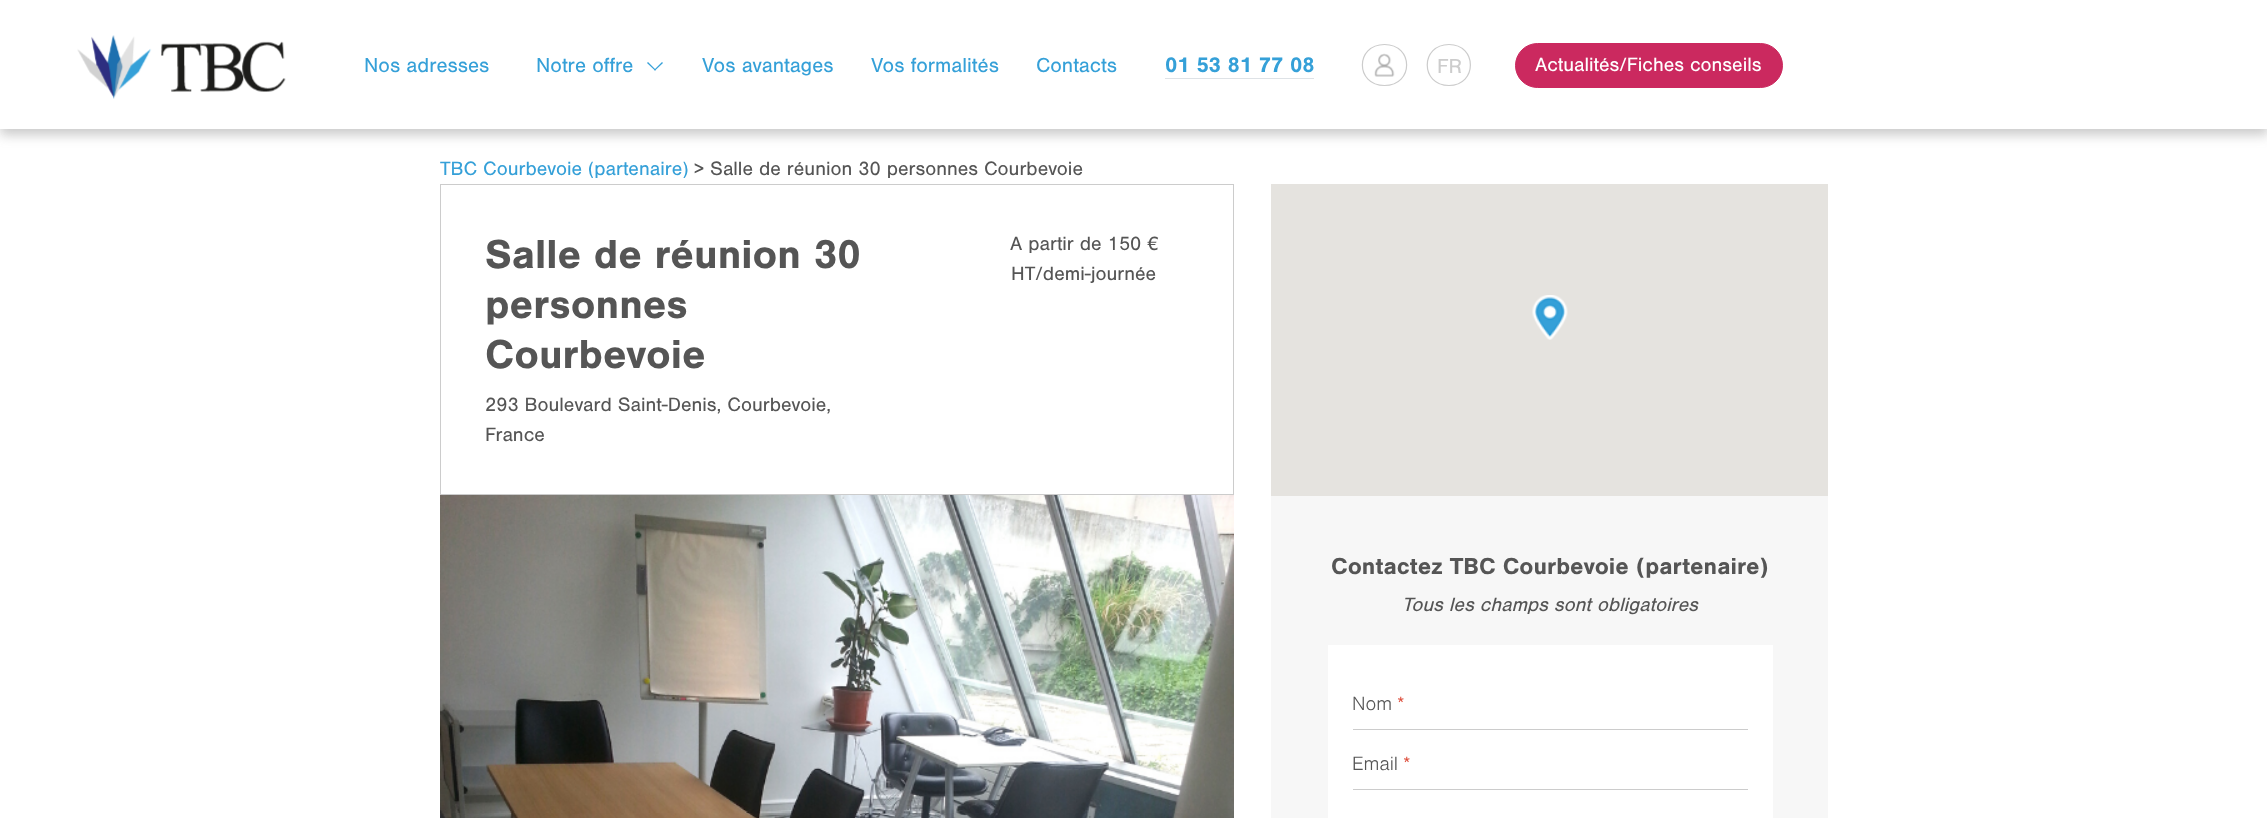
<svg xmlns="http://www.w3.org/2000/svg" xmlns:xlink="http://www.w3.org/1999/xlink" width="2267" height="818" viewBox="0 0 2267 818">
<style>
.cls-1{font:21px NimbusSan;fill:#35a0d8}
.cls-2{font:bold 22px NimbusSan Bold;fill:#35a0d8}
.cls-3{font:21px NimbusSan;fill:#cccccc}
.cls-4{font:20px NimbusSan;fill:#ffffff}
.cls-5{font:20px NimbusSan;fill:#35a0d8}
.cls-6{font:20px NimbusSan;fill:#555555}
.cls-7{font:bold 42px NimbusSan Bold;fill:#555555}
.cls-8{font:bold 24px NimbusSan Bold;fill:#555555}
.cls-9{font:italic 20px NimbusSan;fill:#555555}
.cls-10{font:20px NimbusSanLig;fill:#555555}
.cls-11{font:20px NimbusSanLig;fill:#dd4b39}
</style>
<rect width="100%" height="100%" fill="#ffffff"/>
<rect fill="#7a7a7a" fill-opacity="0.4" filter="blur(6px)" x="0" y="6" width="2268" height="129"/>
<rect fill="#ffffff" x="0" y="0" width="2267" height="129"/>
<image xlink:href="image0.png" x="77" y="35" width="209" height="64"/>
<path fill="#35a0d8" d="M662 62L663 63L655 70.5L654 70Z"/>
<path fill="#35a0d8" d="M648 62L656 70L655 70.5L647 63Z"/>
<rect fill="#dee2e6" x="1165" y="78" width="149" height="1"/>
<path fill="none" stroke="#cccccc" stroke-width="1.2" d="M1384.5 44.5C1414 44.5 1414 85.5 1384.5 85.5C1355 85.5 1355 44.5 1384.5 44.5Z"/>
<image xlink:href="image1.png" x="1374" y="53" width="21" height="24"/>
<path fill="none" stroke="#cccccc" stroke-width="1.2" d="M1449 44.5C1477.5 44.5 1477.5 85.5 1449 85.5C1420 85.5 1420 44.5 1449 44.5Z"/>
<rect fill="#cb295f" stroke="#cb295f" x="1515.5" y="43.5" width="267" height="44" rx="22"/>
<rect fill="none" stroke="#cccccc" x="440.5" y="184.5" width="793" height="310"/>
<image xlink:href="image2.png" x="440" y="495" width="794" height="323"/>
<rect fill="#f7f7f7" x="1271" y="496" width="557" height="322"/>
<rect fill="#e5e3df" x="1271" y="184" width="557" height="312"/>
<image xlink:href="image3.png" x="1532" y="295" width="36" height="45"/>
<rect fill="#ffffff" x="1328" y="645" width="445" height="173"/>
<rect fill="#cccccc" x="1353" y="729" width="395" height="1"/>
<rect fill="#cccccc" x="1353" y="789" width="395" height="1"/>
<text class="cls-1" x="364" y="72">Nos adresses</text>
<text class="cls-1" x="536" y="72">Notre offre</text>
<text class="cls-1" x="702" y="72">Vos avantages</text>
<text class="cls-1" x="871" y="72">Vos formalités</text>
<text class="cls-1" x="1036" y="72">Contacts</text>
<text class="cls-2" x="1165" y="72">01 53 81 77 08</text>
<text class="cls-3" x="1437" y="73">FR</text>
<text class="cls-4" x="1535" y="71">Actualités/Fiches conseils</text>
<text class="cls-5" x="440" y="175">TBC Courbevoie (partenaire)</text>
<text class="cls-6" x="694" y="175">&gt; Salle de réunion 30 personnes Courbevoie</text>
<text class="cls-7"><tspan x="485" y="268">Salle de réunion 30</tspan><tspan x="485" y="318">personnes</tspan><tspan x="485" y="368">Courbevoie</tspan></text>
<text class="cls-6"><tspan x="485" y="411">293 Boulevard Saint-Denis, Courbevoie,</tspan><tspan x="485" y="441">France</tspan></text>
<text class="cls-6" x="1010" y="250">A partir de 150 €</text>
<text class="cls-6" x="1011" y="280">HT/demi-journée</text>
<text class="cls-8" x="1331" y="574">Contactez TBC Courbevoie (partenaire)</text>
<text class="cls-9" x="1402" y="611">Tous les champs sont obligatoires</text>
<text class="cls-10" x="1352" y="710">Nom</text>
<text class="cls-11" x="1397" y="710">*</text>
<text class="cls-10" x="1352" y="770">Email</text>
<text class="cls-11" x="1403" y="770">*</text>
</svg>
